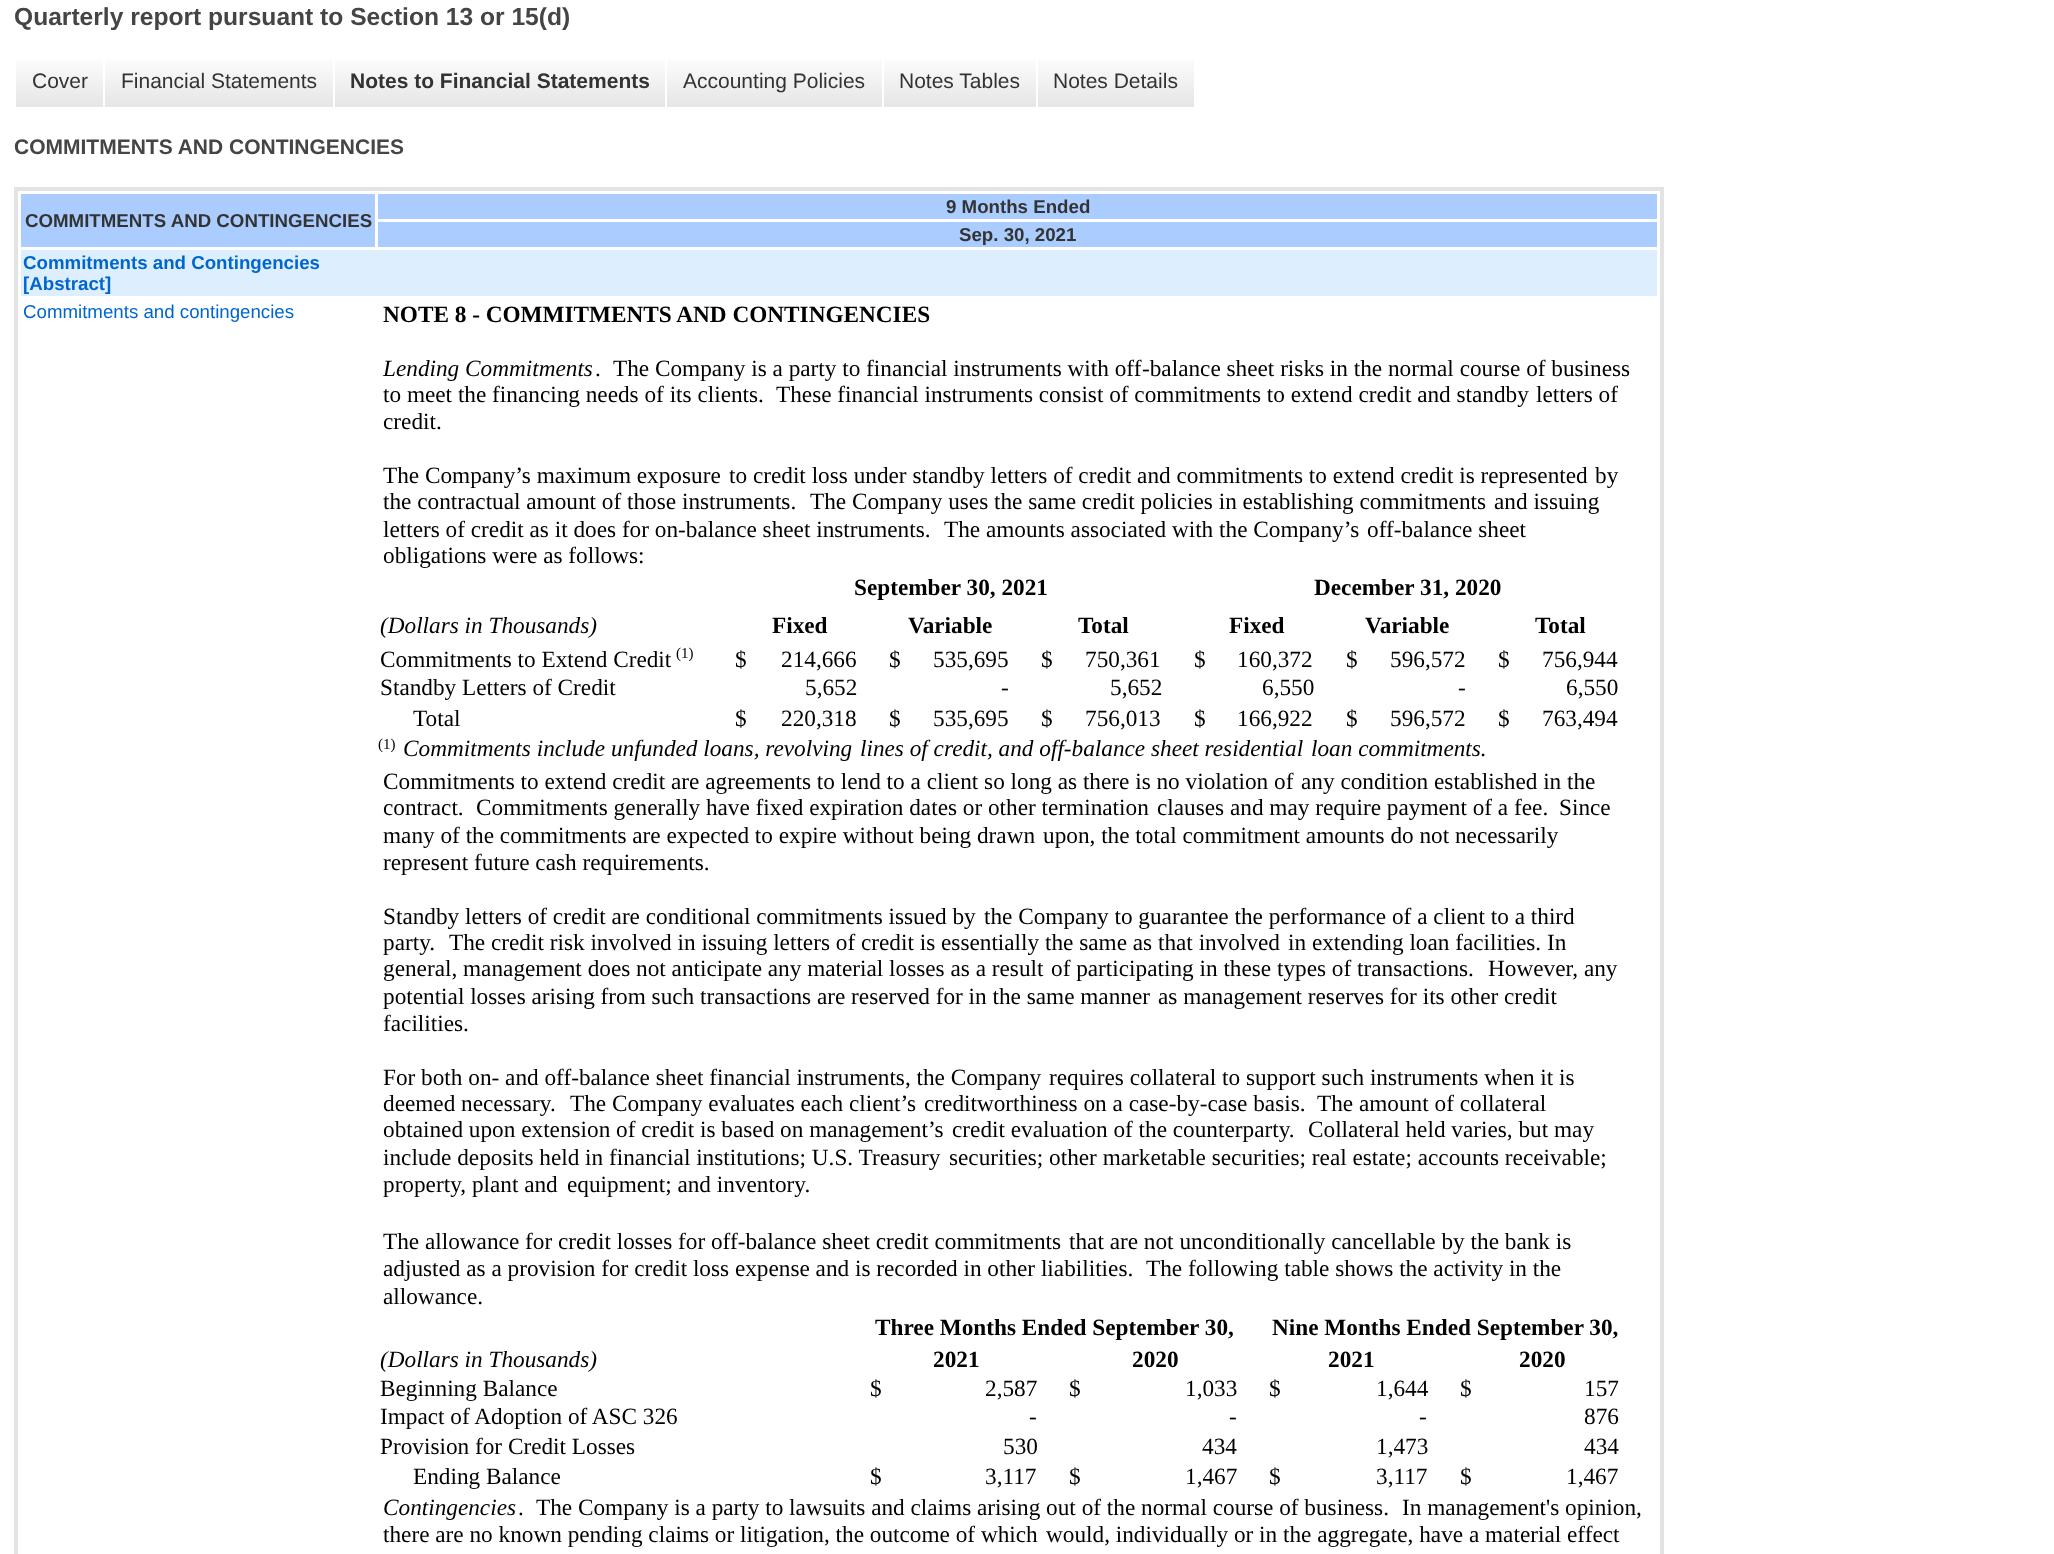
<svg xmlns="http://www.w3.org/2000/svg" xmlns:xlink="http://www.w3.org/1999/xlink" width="2054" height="1554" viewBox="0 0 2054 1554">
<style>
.cls-1{font:bold 24.6px Liberation Sans;fill:#454545}
.cls-2{font:21px Liberation Sans;fill:#333333}
.cls-3{font:bold 21px Liberation Sans;fill:#333333}
.cls-4{font:bold 21px Liberation Sans;fill:#454545}
.cls-5{font:bold 18.7px Liberation Sans;fill:#333333}
.cls-6{font:bold 18.7px Liberation Sans;fill:#0066cc}
.cls-7{font:18.7px Liberation Sans;fill:#0066cc}
.cls-8{font:bold 23.25px Liberation Serif;fill:#000000}
.cls-9{font:italic 23.25px Liberation Serif;fill:#000000}
.cls-10{font:23.25px Liberation Serif;fill:#000000}
.cls-11{font:15px Liberation Serif;fill:#000000}
</style>
<defs>
<linearGradient id="g1" gradientUnits="userSpaceOnUse" x1="60" y1="54" x2="60" y2="107"><stop offset="0" stop-color="#ffffff"/><stop offset="1" stop-color="#e5e5e5"/></linearGradient>
<linearGradient id="g2" gradientUnits="userSpaceOnUse" x1="219" y1="54" x2="219" y2="107"><stop offset="0" stop-color="#ffffff"/><stop offset="1" stop-color="#e5e5e5"/></linearGradient>
<linearGradient id="g3" gradientUnits="userSpaceOnUse" x1="500" y1="54" x2="500" y2="107"><stop offset="0" stop-color="#ffffff"/><stop offset="1" stop-color="#e5e5e5"/></linearGradient>
<linearGradient id="g4" gradientUnits="userSpaceOnUse" x1="774" y1="54" x2="774" y2="107"><stop offset="0" stop-color="#ffffff"/><stop offset="1" stop-color="#e5e5e5"/></linearGradient>
<linearGradient id="g5" gradientUnits="userSpaceOnUse" x1="960" y1="54" x2="960" y2="107"><stop offset="0" stop-color="#ffffff"/><stop offset="1" stop-color="#e5e5e5"/></linearGradient>
<linearGradient id="g6" gradientUnits="userSpaceOnUse" x1="1116" y1="54" x2="1116" y2="107"><stop offset="0" stop-color="#ffffff"/><stop offset="1" stop-color="#e5e5e5"/></linearGradient>
</defs>
<rect width="100%" height="100%" fill="#ffffff"/>
<rect fill="url(#g1)" x="16" y="59" width="87" height="48"/>
<rect fill="url(#g2)" x="105" y="59" width="228" height="48"/>
<rect fill="url(#g3)" x="335" y="59" width="330" height="48"/>
<rect fill="url(#g4)" x="667" y="59" width="215" height="48"/>
<rect fill="url(#g5)" x="884" y="59" width="152" height="48"/>
<rect fill="url(#g6)" x="1038" y="59" width="156" height="48"/>
<rect fill="none" stroke="#e3e3e3" stroke-width="4" x="16" y="189" width="1646" height="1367"/>
<rect fill="#aaccff" x="378" y="194" width="1279" height="25"/>
<rect fill="#aaccff" x="21" y="194" width="354" height="53"/>
<rect fill="#aaccff" x="378" y="222" width="1279" height="25"/>
<rect fill="#ddeeff" x="21" y="250" width="1636" height="46"/>
<text class="cls-1" x="14" y="25">Quarterly report pursuant to Section 13 or 15(d)</text>
<text class="cls-2" x="32" y="88">Cover</text>
<text class="cls-2" x="121" y="88">Financial Statements</text>
<text class="cls-3" x="350" y="88">Notes to Financial Statements</text>
<text class="cls-2" x="683" y="88">Accounting Policies</text>
<text class="cls-2" x="899" y="88">Notes Tables</text>
<text class="cls-2" x="1053" y="88">Notes Details</text>
<text class="cls-4" x="14" y="154">COMMITMENTS AND CONTINGENCIES</text>
<text class="cls-5" x="946" y="213">9 Months Ended</text>
<text class="cls-5" x="25" y="227">COMMITMENTS AND CONTINGENCIES</text>
<text class="cls-5" x="959" y="241">Sep. 30, 2021</text>
<text class="cls-6"><tspan x="23" y="269">Commitments and Contingencies</tspan><tspan x="23" y="290">[Abstract]</tspan></text>
<text class="cls-7" x="23" y="318">Commitments and contingencies</text>
<text class="cls-8" x="383" y="322">NOTE 8 - COMMITMENTS AND CONTINGENCIES</text>
<text class="cls-9" x="383" y="376">Lending Commitments</text>
<text class="cls-10" x="595" y="376">.</text>
<text class="cls-10" x="613" y="376">The Company is a party to financial instruments with off</text>
<text class="cls-10" x="1142" y="376">-balance sheet risks in the normal course of business</text>
<text class="cls-10" x="383" y="402">to meet the financing needs of its clients.</text>
<text class="cls-10" x="776" y="402">These financial instruments consist of commitments to extend credit and standby</text>
<text class="cls-10" x="1536" y="402">letters of</text>
<text class="cls-10" x="383" y="429">credit.</text>
<text class="cls-10" x="383" y="483">The Company’s maximum exposure</text>
<text class="cls-10" x="729" y="483">to credit loss under standby letters of credit and commitments to extend credit is represented</text>
<text class="cls-10" x="1595" y="483">by</text>
<text class="cls-10" x="383" y="509">the contractual amount of those instruments.</text>
<text class="cls-10" x="810" y="509">The Company uses the same credit policies in establishing commitments</text>
<text class="cls-10" x="1494" y="509">and issuing</text>
<text class="cls-10" x="383" y="537">letters of credit as it does for on-balance sheet instruments.</text>
<text class="cls-10" x="944" y="537">The amounts associated with the Company’s</text>
<text class="cls-10" x="1367" y="537">off-balance sheet</text>
<text class="cls-10" x="383" y="563">obligations were as follows:</text>
<text class="cls-8" x="854" y="595">September 30, 2021</text>
<text class="cls-8" x="1314" y="595">December 31, 2020</text>
<text class="cls-9" x="380" y="633">(Dollars in Thousands)</text>
<text class="cls-8" x="772" y="633">Fixed</text>
<text class="cls-8" x="908" y="633">Variable</text>
<text class="cls-8" x="1078" y="633">Total</text>
<text class="cls-8" x="1229" y="633">Fixed</text>
<text class="cls-8" x="1365" y="633">Variable</text>
<text class="cls-8" x="1535" y="633">Total</text>
<text class="cls-10" x="380" y="667">Commitments to Extend Credit</text>
<text class="cls-11" x="676" y="658">(1)</text>
<text class="cls-10" x="735" y="667">$</text>
<text class="cls-10" x="781" y="667">214,666</text>
<text class="cls-10" x="889" y="667">$</text>
<text class="cls-10" x="933" y="667">535,695</text>
<text class="cls-10" x="1041" y="667">$</text>
<text class="cls-10" x="1085" y="667">750,361</text>
<text class="cls-10" x="1194" y="667">$</text>
<text class="cls-10" x="1237" y="667">160,372</text>
<text class="cls-10" x="1346" y="667">$</text>
<text class="cls-10" x="1390" y="667">596,572</text>
<text class="cls-10" x="1498" y="667">$</text>
<text class="cls-10" x="1542" y="667">756,944</text>
<text class="cls-10" x="380" y="695">Standby Letters of Credit</text>
<text class="cls-10" x="805" y="695">5,652</text>
<text class="cls-10" x="1001" y="695">-</text>
<text class="cls-10" x="1110" y="695">5,652</text>
<text class="cls-10" x="1262" y="695">6,550</text>
<text class="cls-10" x="1458" y="695">-</text>
<text class="cls-10" x="1566" y="695">6,550</text>
<text class="cls-10" x="413" y="726">Total</text>
<text class="cls-10" x="735" y="726">$</text>
<text class="cls-10" x="781" y="726">220,318</text>
<text class="cls-10" x="889" y="726">$</text>
<text class="cls-10" x="933" y="726">535,695</text>
<text class="cls-10" x="1041" y="726">$</text>
<text class="cls-10" x="1085" y="726">756,013</text>
<text class="cls-10" x="1194" y="726">$</text>
<text class="cls-10" x="1237" y="726">166,922</text>
<text class="cls-10" x="1346" y="726">$</text>
<text class="cls-10" x="1390" y="726">596,572</text>
<text class="cls-10" x="1498" y="726">$</text>
<text class="cls-10" x="1542" y="726">763,494</text>
<text class="cls-11" x="378" y="749">(1)</text>
<text class="cls-9" x="403" y="756">Commitments include unfunded loans, revolving</text>
<text class="cls-9" x="860" y="756">lines of credit, and off-balance sheet residential</text>
<text class="cls-9" x="1311" y="756">loan commitments.</text>
<text class="cls-10" x="383" y="789">Commitments to extend credit are agreements to lend to a client so long as there is no violation of</text>
<text class="cls-10" x="1301" y="789">any condition established in the</text>
<text class="cls-10" x="383" y="815">contract.</text>
<text class="cls-10" x="476" y="815">Commitments generally have fixed expiration dates or other termination</text>
<text class="cls-10" x="1157" y="815">clauses and may require payment of a fee.</text>
<text class="cls-10" x="1559" y="815">Since</text>
<text class="cls-10" x="383" y="843">many of the commitments are expected to expire without being drawn</text>
<text class="cls-10" x="1043" y="843">upon, the total commitment amounts do not necessarily</text>
<text class="cls-10" x="383" y="870">represent future cash requirements.</text>
<text class="cls-10" x="383" y="924">Standby letters of credit are conditional commitments issued by</text>
<text class="cls-10" x="984" y="924">the Company to guarantee the performance of a client to a third</text>
<text class="cls-10" x="383" y="950">party.</text>
<text class="cls-10" x="449" y="950">The credit risk involved in issuing letters of credit is essentially the same as that involved</text>
<text class="cls-10" x="1288" y="950">in extending loan facilities. In</text>
<text class="cls-10" x="383" y="976">general, management does not anticipate any material losses as a result</text>
<text class="cls-10" x="1051" y="976">of participating in these types of transactions.</text>
<text class="cls-10" x="1488" y="976">However, any</text>
<text class="cls-10" x="383" y="1004">potential losses arising from such transactions are reserved for in the same manner</text>
<text class="cls-10" x="1158" y="1004">as management reserves for its other credit</text>
<text class="cls-10" x="383" y="1031">facilities.</text>
<text class="cls-10" x="383" y="1085">For both on- and off-balance sheet financial instruments, the Company</text>
<text class="cls-10" x="1049" y="1085">requires collateral to support such instruments when it is</text>
<text class="cls-10" x="383" y="1111">deemed necessary.</text>
<text class="cls-10" x="570" y="1111">The Company evaluates each client’s</text>
<text class="cls-10" x="924" y="1111">creditworthiness on a case-by-case basis.</text>
<text class="cls-10" x="1317" y="1111">The amount of collateral</text>
<text class="cls-10" x="383" y="1137">obtained upon extension of credit is based on management’s</text>
<text class="cls-10" x="952" y="1137">credit evaluation of the counterparty.</text>
<text class="cls-10" x="1308" y="1137">Collateral held varies, but may</text>
<text class="cls-10" x="383" y="1165">include deposits held in financial institutions; U.S. Treasury</text>
<text class="cls-10" x="949" y="1165">securities; other marketable securities; real estate; accounts receivable;</text>
<text class="cls-10" x="383" y="1192">property, plant and</text>
<text class="cls-10" x="567" y="1192">equipment; and inventory.</text>
<text class="cls-10" x="383" y="1249">The allowance for credit losses for off-balance sheet credit commitments</text>
<text class="cls-10" x="1069" y="1249">that are not unconditionally cancellable by the bank is</text>
<text class="cls-10" x="383" y="1276">adjusted as a provision for credit loss expense and is recorded in other liabilities.</text>
<text class="cls-10" x="1146" y="1276">The following table shows the activity in the</text>
<text class="cls-10" x="383" y="1304">allowance.</text>
<text class="cls-8" x="875" y="1335">Three Months Ended September 30,</text>
<text class="cls-8" x="1272" y="1335">Nine Months Ended September 30,</text>
<text class="cls-9" x="380" y="1367">(Dollars in Thousands)</text>
<text class="cls-8" x="933" y="1367">2021</text>
<text class="cls-8" x="1132" y="1367">2020</text>
<text class="cls-8" x="1328" y="1367">2021</text>
<text class="cls-8" x="1519" y="1367">2020</text>
<text class="cls-10" x="380" y="1396">Beginning Balance</text>
<text class="cls-10" x="870" y="1396">$</text>
<text class="cls-10" x="985" y="1396">2,587</text>
<text class="cls-10" x="1069" y="1396">$</text>
<text class="cls-10" x="1185" y="1396">1,033</text>
<text class="cls-10" x="1269" y="1396">$</text>
<text class="cls-10" x="1376" y="1396">1,644</text>
<text class="cls-10" x="1460" y="1396">$</text>
<text class="cls-10" x="1584" y="1396">157</text>
<text class="cls-10" x="380" y="1424">Impact of Adoption of ASC 326</text>
<text class="cls-10" x="1029" y="1424">-</text>
<text class="cls-10" x="1229" y="1424">-</text>
<text class="cls-10" x="1419" y="1424">-</text>
<text class="cls-10" x="1584" y="1424">876</text>
<text class="cls-10" x="380" y="1454">Provision for Credit Losses</text>
<text class="cls-10" x="1003" y="1454">530</text>
<text class="cls-10" x="1202" y="1454">434</text>
<text class="cls-10" x="1376" y="1454">1,473</text>
<text class="cls-10" x="1584" y="1454">434</text>
<text class="cls-10" x="413" y="1484">Ending Balance</text>
<text class="cls-10" x="870" y="1484">$</text>
<text class="cls-10" x="985" y="1484">3,117</text>
<text class="cls-10" x="1069" y="1484">$</text>
<text class="cls-10" x="1185" y="1484">1,467</text>
<text class="cls-10" x="1269" y="1484">$</text>
<text class="cls-10" x="1376" y="1484">3,117</text>
<text class="cls-10" x="1460" y="1484">$</text>
<text class="cls-10" x="1566" y="1484">1,467</text>
<text class="cls-9" x="383" y="1515">Contingencies</text>
<text class="cls-10" x="518" y="1515">.</text>
<text class="cls-10" x="536" y="1515">The Company is a party to lawsuits and claims arising out of the normal course of business.</text>
<text class="cls-10" x="1402" y="1515">In management's opinion,</text>
<text class="cls-10" x="383" y="1542">there are no known pending claims or litigation, the outcome of which</text>
<text class="cls-10" x="1046" y="1542">would, individually or in the aggregate, have a material effect</text>
</svg>
